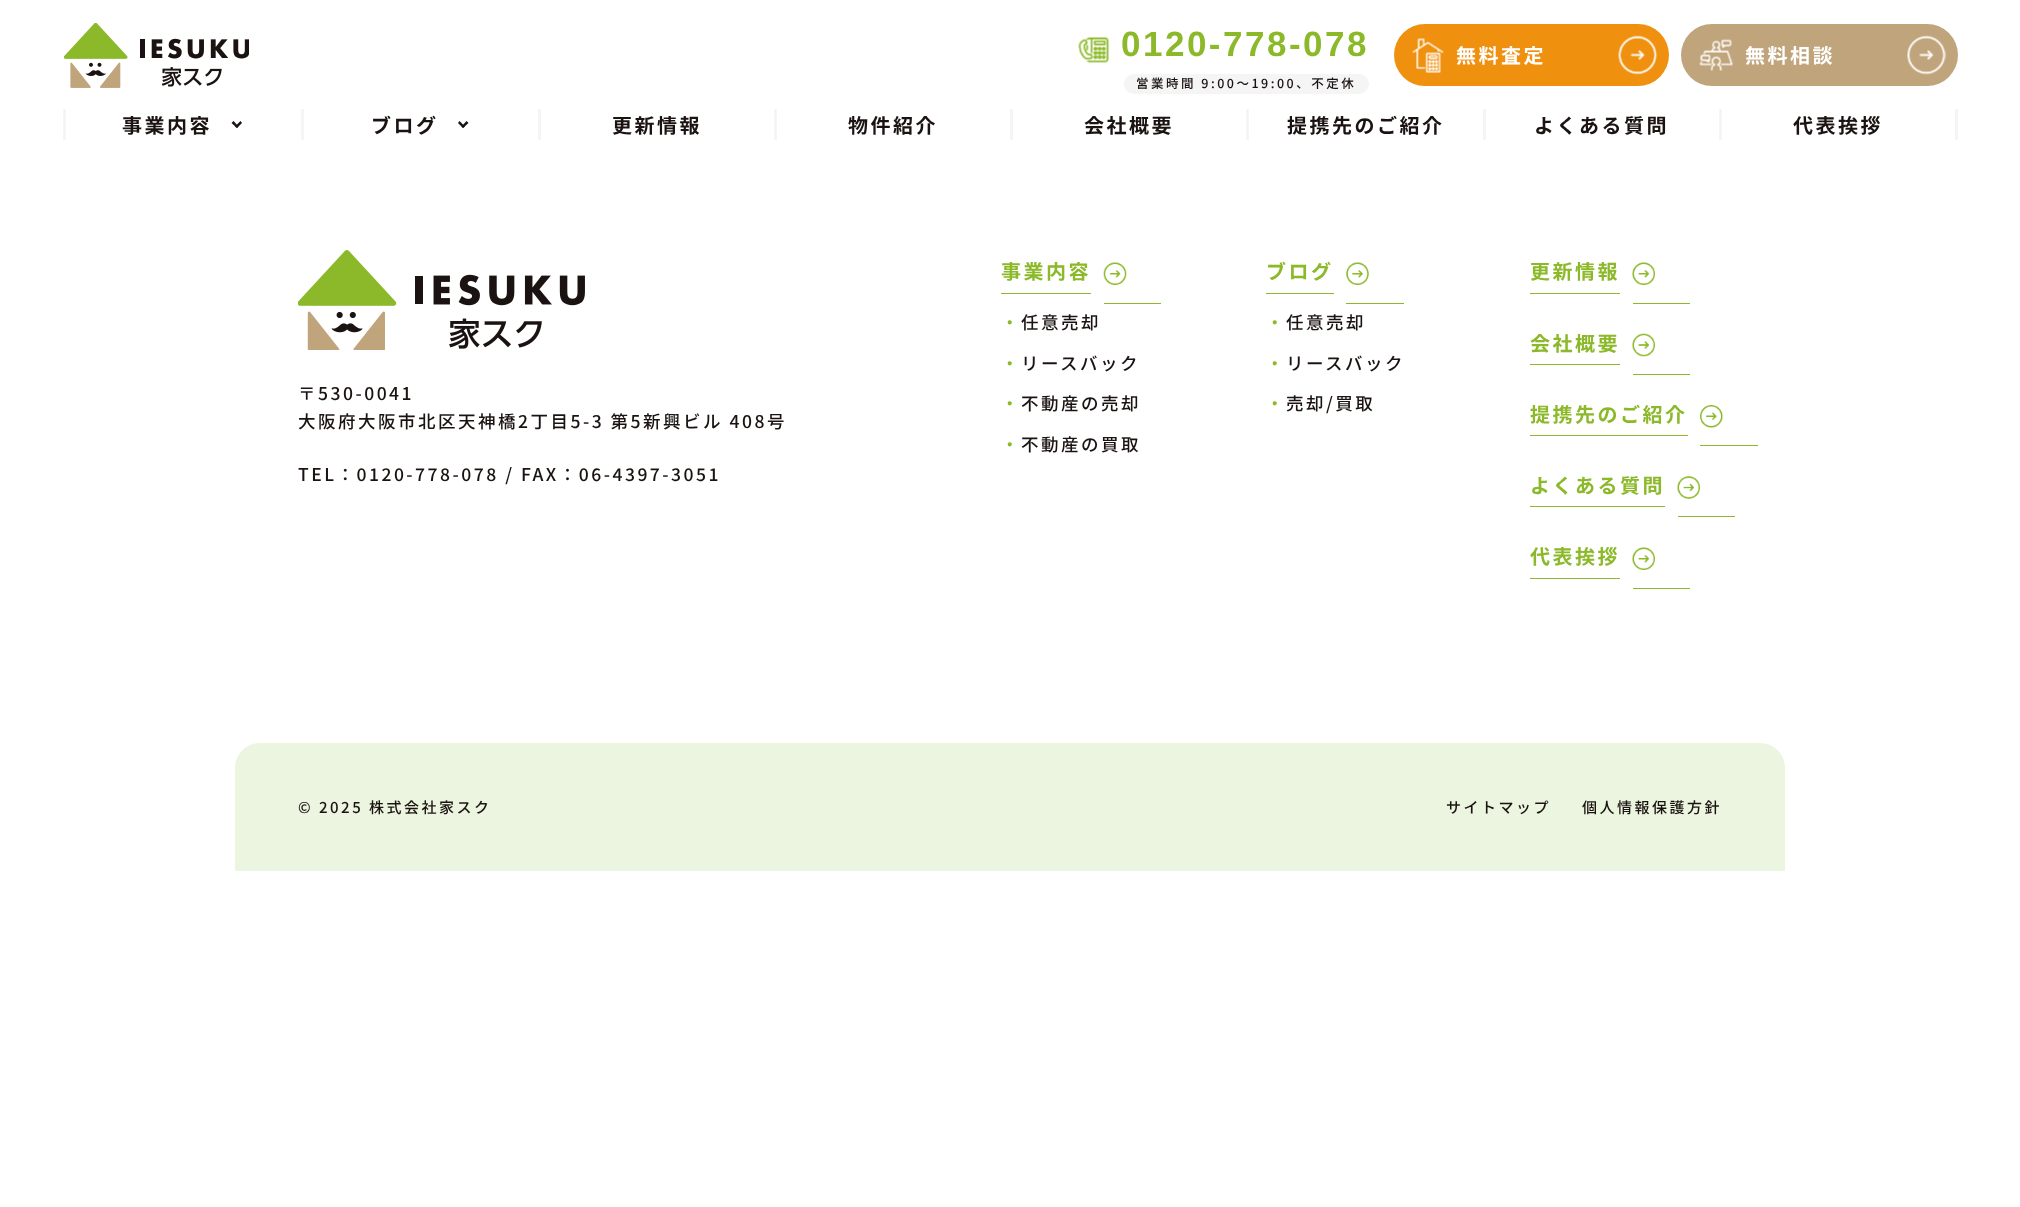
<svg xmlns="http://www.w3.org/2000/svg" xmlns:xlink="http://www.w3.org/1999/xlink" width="2020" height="1207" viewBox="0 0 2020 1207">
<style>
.cls-1{font:bold 35px Liberation Sans;letter-spacing:2.5px;fill:#8bb929}
.cls-2{font:500 12.5px Noto Sans JP;letter-spacing:2.5px;fill:#1a1311}
.cls-3{font:bold 20px Noto Sans JP;letter-spacing:2.5px;fill:#ffffff}
.cls-4{font:bold 20px Noto Sans JP;letter-spacing:2.5px;fill:#1a1311}
.cls-5{font:500 17.5px Noto Sans JP;letter-spacing:2.5px;fill:#1a1311}
.cls-6{font:bold 20px Noto Sans JP;letter-spacing:2.5px;fill:#8bb929}
.cls-7{font:500 17.5px Noto Sans JP;letter-spacing:2.5px;fill:#8bb929}
.cls-8{font:500 15px Noto Sans JP;letter-spacing:2.5px;fill:#1a1311}
</style>
<rect width="100%" height="100%" fill="#ffffff"/>
<image xlink:href="image0.png" x="64" y="23" width="185" height="65"/>
<image xlink:href="image1.png" x="1078" y="37" width="32" height="26"/>
<rect fill="#f5f5f5" x="1124" y="74" width="245" height="20" rx="10"/>
<rect fill="#ef900f" x="1394" y="24" width="275" height="62" rx="31"/>
<image xlink:href="image2.png" x="1412" y="38" width="32" height="35"/>
<image xlink:href="image3.png" x="1618" y="35" width="39" height="40"/>
<rect fill="#c0a47b" x="1681" y="24" width="277" height="62" rx="31"/>
<image xlink:href="image4.png" x="1699" y="39" width="34" height="32"/>
<image xlink:href="image5.png" x="1907" y="35" width="39" height="40"/>
<rect fill="#f5f5f5" x="1955" y="109" width="3" height="31"/>
<rect fill="#f5f5f5" x="63" y="109" width="3" height="31"/>
<path fill="#1a1311" d="M242 123L237 128L235 126.5L240.5 121Z"/>
<path fill="#1a1311" d="M238.5 126.5L237 128L231.5 123L233.5 121Z"/>
<rect fill="#f5f5f5" x="301" y="109" width="3" height="31"/>
<path fill="#1a1311" d="M468.5 123L463 128L461.5 126.5L466.5 121Z"/>
<path fill="#1a1311" d="M465 126.5L463 128L458 123L459.5 121Z"/>
<rect fill="#f5f5f5" x="538" y="109" width="3" height="31"/>
<rect fill="#f5f5f5" x="774" y="109" width="3" height="31"/>
<rect fill="#f5f5f5" x="1010" y="109" width="3" height="31"/>
<rect fill="#f5f5f5" x="1246" y="109" width="3" height="31"/>
<rect fill="#f5f5f5" x="1483" y="109" width="3" height="31"/>
<rect fill="#f5f5f5" x="1719" y="109" width="3" height="31"/>
<image xlink:href="image6.png" x="298" y="250" width="287" height="100"/>
<rect fill="#8bb929" x="1001" y="293" width="90" height="1"/>
<rect fill="#8bb929" x="1104" y="303" width="57" height="1"/>
<image xlink:href="image7.png" x="1103" y="262" width="24" height="23"/>
<rect fill="#8bb929" x="1266" y="293" width="68" height="1"/>
<rect fill="#8bb929" x="1346" y="303" width="58" height="1"/>
<image xlink:href="image8.png" x="1346" y="262" width="23" height="23"/>
<rect fill="#8bb929" x="1530" y="293" width="90" height="1"/>
<rect fill="#8bb929" x="1633" y="303" width="57" height="1"/>
<image xlink:href="image9.png" x="1632" y="262" width="23" height="23"/>
<rect fill="#8bb929" x="1530" y="364" width="90" height="1"/>
<rect fill="#8bb929" x="1633" y="374" width="57" height="1"/>
<image xlink:href="image10.png" x="1632" y="333" width="23" height="24"/>
<rect fill="#8bb929" x="1530" y="435" width="158" height="1"/>
<rect fill="#8bb929" x="1700" y="445" width="58" height="1"/>
<image xlink:href="image11.png" x="1700" y="405" width="23" height="23"/>
<rect fill="#8bb929" x="1530" y="506" width="135" height="1"/>
<rect fill="#8bb929" x="1678" y="516" width="57" height="1"/>
<image xlink:href="image12.png" x="1677" y="476" width="23" height="23"/>
<rect fill="#8bb929" x="1530" y="578" width="90" height="1"/>
<rect fill="#8bb929" x="1633" y="588" width="57" height="1"/>
<image xlink:href="image9.png" x="1632" y="547" width="23" height="23"/>
<path fill="#ecf5df" d="M260 743H1760C1774 743 1785 754 1785 768V871H235V768C235 754 246 743 260 743Z"/>
<text class="cls-1" x="1121" y="56">0120-778-078</text>
<text class="cls-2" x="1136" y="88">営業時間 9:00～19:00、不定休</text>
<text class="cls-3" x="1456" y="63">無料査定</text>
<text class="cls-3" x="1745" y="63">無料相談</text>
<text class="cls-4" x="122" y="133">事業内容</text>
<text class="cls-4" x="371" y="133">ブログ</text>
<text class="cls-4" x="612" y="133">更新情報</text>
<text class="cls-4" x="848" y="133">物件紹介</text>
<text class="cls-4" x="1084" y="133">会社概要</text>
<text class="cls-4" x="1287" y="133">提携先のご紹介</text>
<text class="cls-4" x="1534" y="133">よくある質問</text>
<text class="cls-4" x="1793" y="133">代表挨拶</text>
<text class="cls-5"><tspan x="298" y="400">〒530-0041</tspan><tspan x="298" y="428">大阪府大阪市北区天神橋2丁目5-3 第5新興ビル 408号</tspan></text>
<text class="cls-5" x="298" y="481">TEL：0120-778-078 / FAX：06-4397-3051</text>
<text class="cls-6" x="1001" y="279">事業内容</text>
<text class="cls-7" x="1001" y="329">・</text>
<text class="cls-5" x="1021" y="329">任意売却</text>
<text class="cls-7" x="1001" y="370">・</text>
<text class="cls-5" x="1021" y="370">リースバック</text>
<text class="cls-7" x="1001" y="410">・</text>
<text class="cls-5" x="1021" y="410">不動産の売却</text>
<text class="cls-7" x="1001" y="451">・</text>
<text class="cls-5" x="1021" y="451">不動産の買取</text>
<text class="cls-6" x="1266" y="279">ブログ</text>
<text class="cls-7" x="1266" y="329">・</text>
<text class="cls-5" x="1286" y="329">任意売却</text>
<text class="cls-7" x="1266" y="370">・</text>
<text class="cls-5" x="1286" y="370">リースバック</text>
<text class="cls-7" x="1266" y="410">・</text>
<text class="cls-5" x="1286" y="410">売却/買取</text>
<text class="cls-6" x="1530" y="279">更新情報</text>
<text class="cls-6" x="1530" y="351">会社概要</text>
<text class="cls-6" x="1530" y="422">提携先のご紹介</text>
<text class="cls-6" x="1530" y="493">よくある質問</text>
<text class="cls-6" x="1530" y="564">代表挨拶</text>
<text class="cls-8" x="298" y="813">© 2025 株式会社家スク</text>
<text class="cls-8" x="1446" y="813">サイトマップ</text>
<text class="cls-8" x="1582" y="813">個人情報保護方針</text>
</svg>
